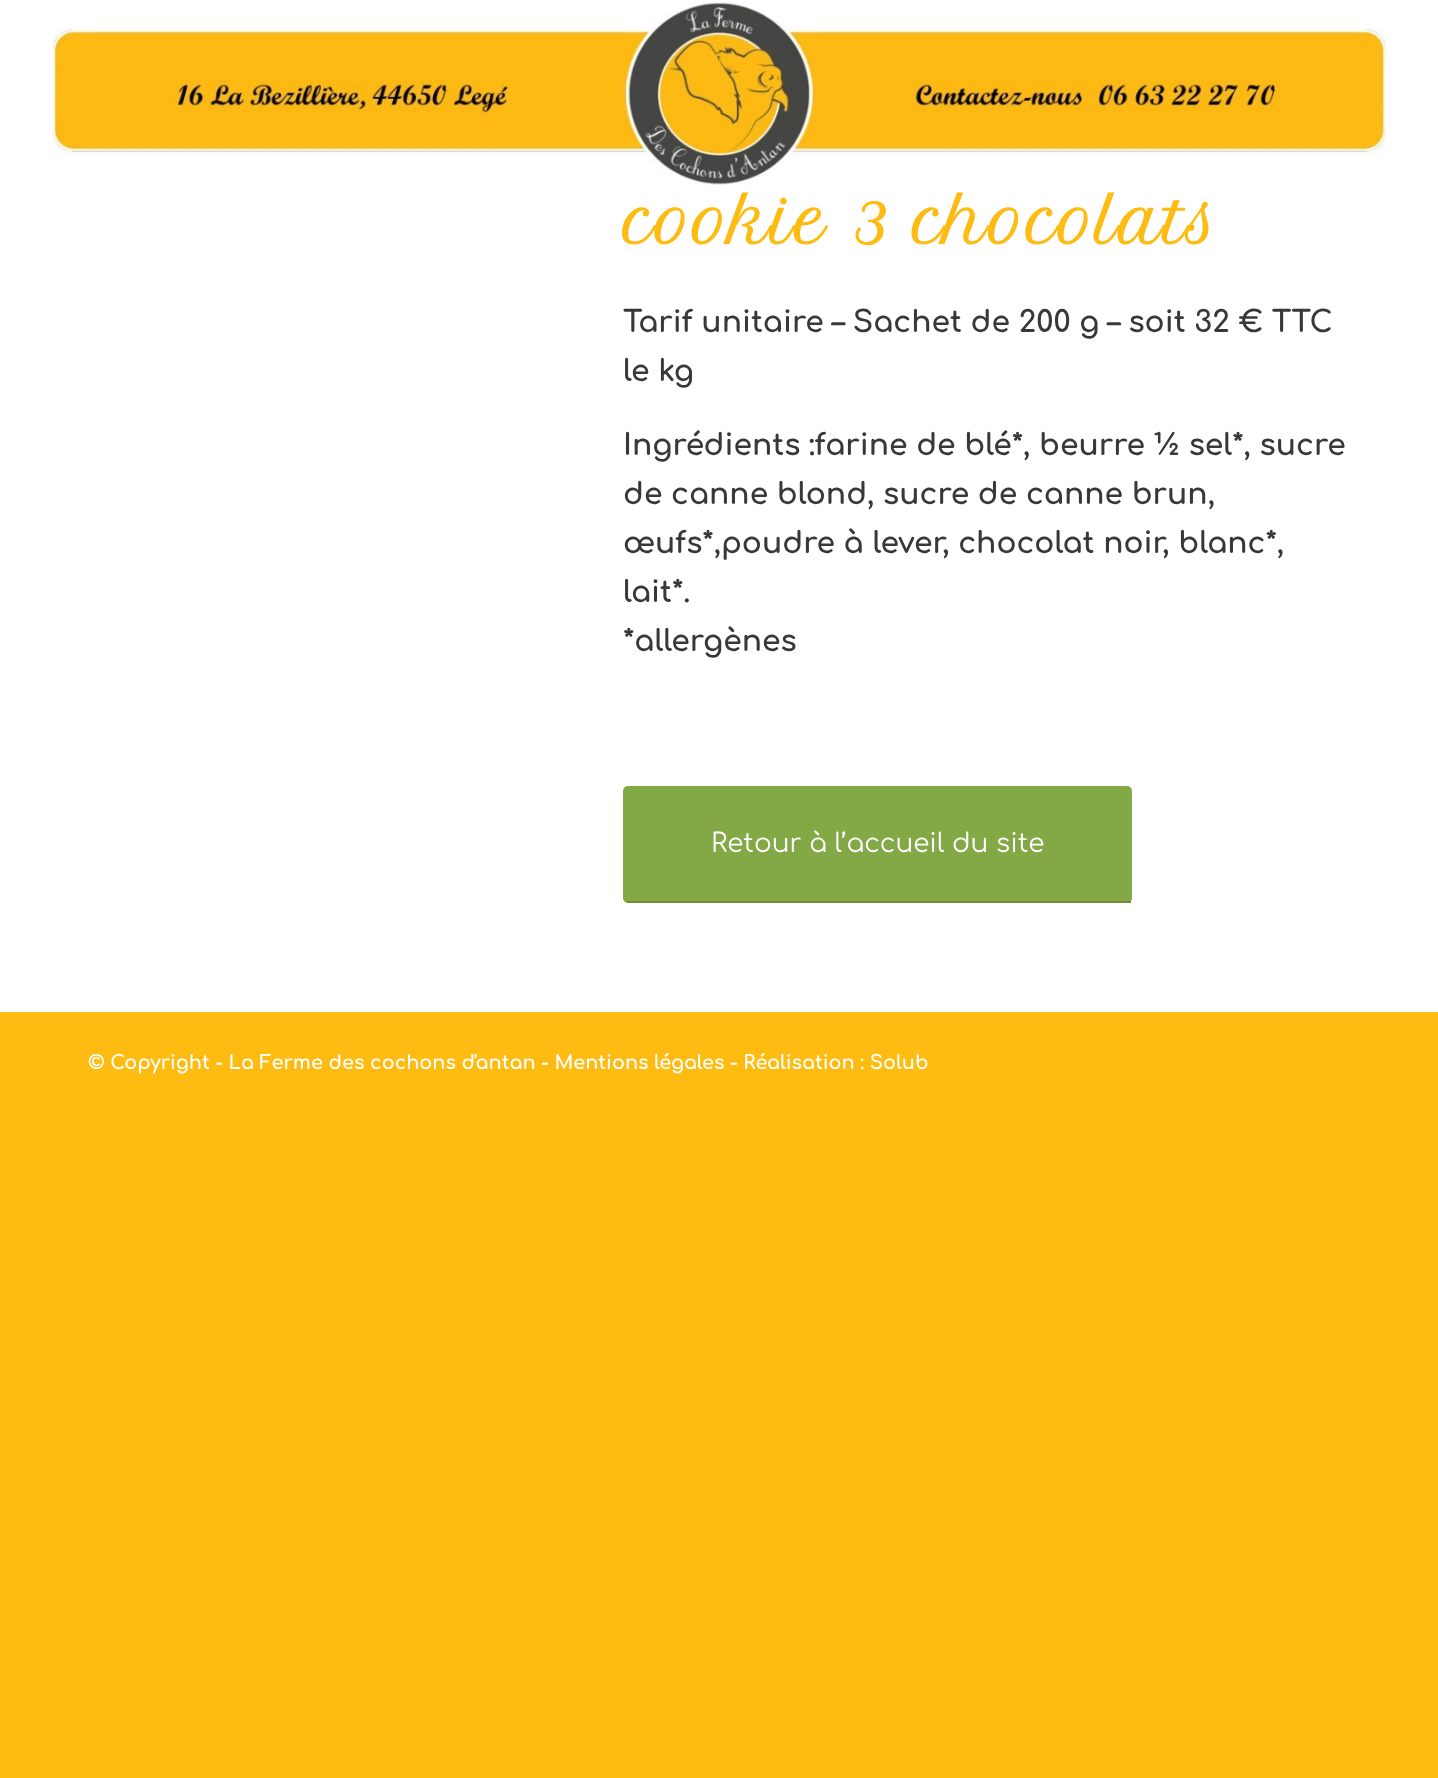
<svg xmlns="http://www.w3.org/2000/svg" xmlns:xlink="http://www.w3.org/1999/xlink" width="1438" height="1778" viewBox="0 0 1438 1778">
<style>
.cls-1{font:bold 59.5px Petit Formal Script;letter-spacing:1.75px;fill:#febb12}
.cls-2{font:bold 29.75px Comfortaa;fill:#383838}
.cls-3{font:26.25px Comfortaa;fill:#ffffff}
.cls-4{font:bold 19.25px Comfortaa;fill:#ffffff}
</style>
<rect width="100%" height="100%" fill="#febb12"/>
<rect fill="#ffffff" x="0" y="0" width="1438" height="1012"/>
<image xlink:href="image0.png" x="52" y="1" width="1334" height="184"/>
<rect fill="#83a846" x="623" y="786" width="509" height="117" rx="5"/>
<rect fill="#6f8f3b" x="627" y="901" width="504" height="2"/>
<text class="cls-1" x="623" y="244">cookie 3 chocolats</text>
<text class="cls-2"><tspan x="623" y="332">Tarif unitaire – Sachet de 200 g – soit 32 € TTC</tspan><tspan x="623" y="381">le kg</tspan></text>
<text class="cls-2"><tspan x="623" y="455">Ingrédients :farine de blé*, beurre ½ sel*, sucre</tspan><tspan x="623" y="504">de canne blond, sucre de canne brun,</tspan><tspan x="623" y="553">œufs*,poudre à lever, chocolat noir, blanc*,</tspan><tspan x="623" y="602">lait*.</tspan><tspan x="623" y="651">*allergènes</tspan></text>
<text class="cls-3" x="711" y="852">Retour à l’accueil du site</text>
<text class="cls-4" x="88" y="1069">© Copyright - La Ferme des cochons d'antan - Mentions légales - Réalisation : Solub</text>
</svg>
